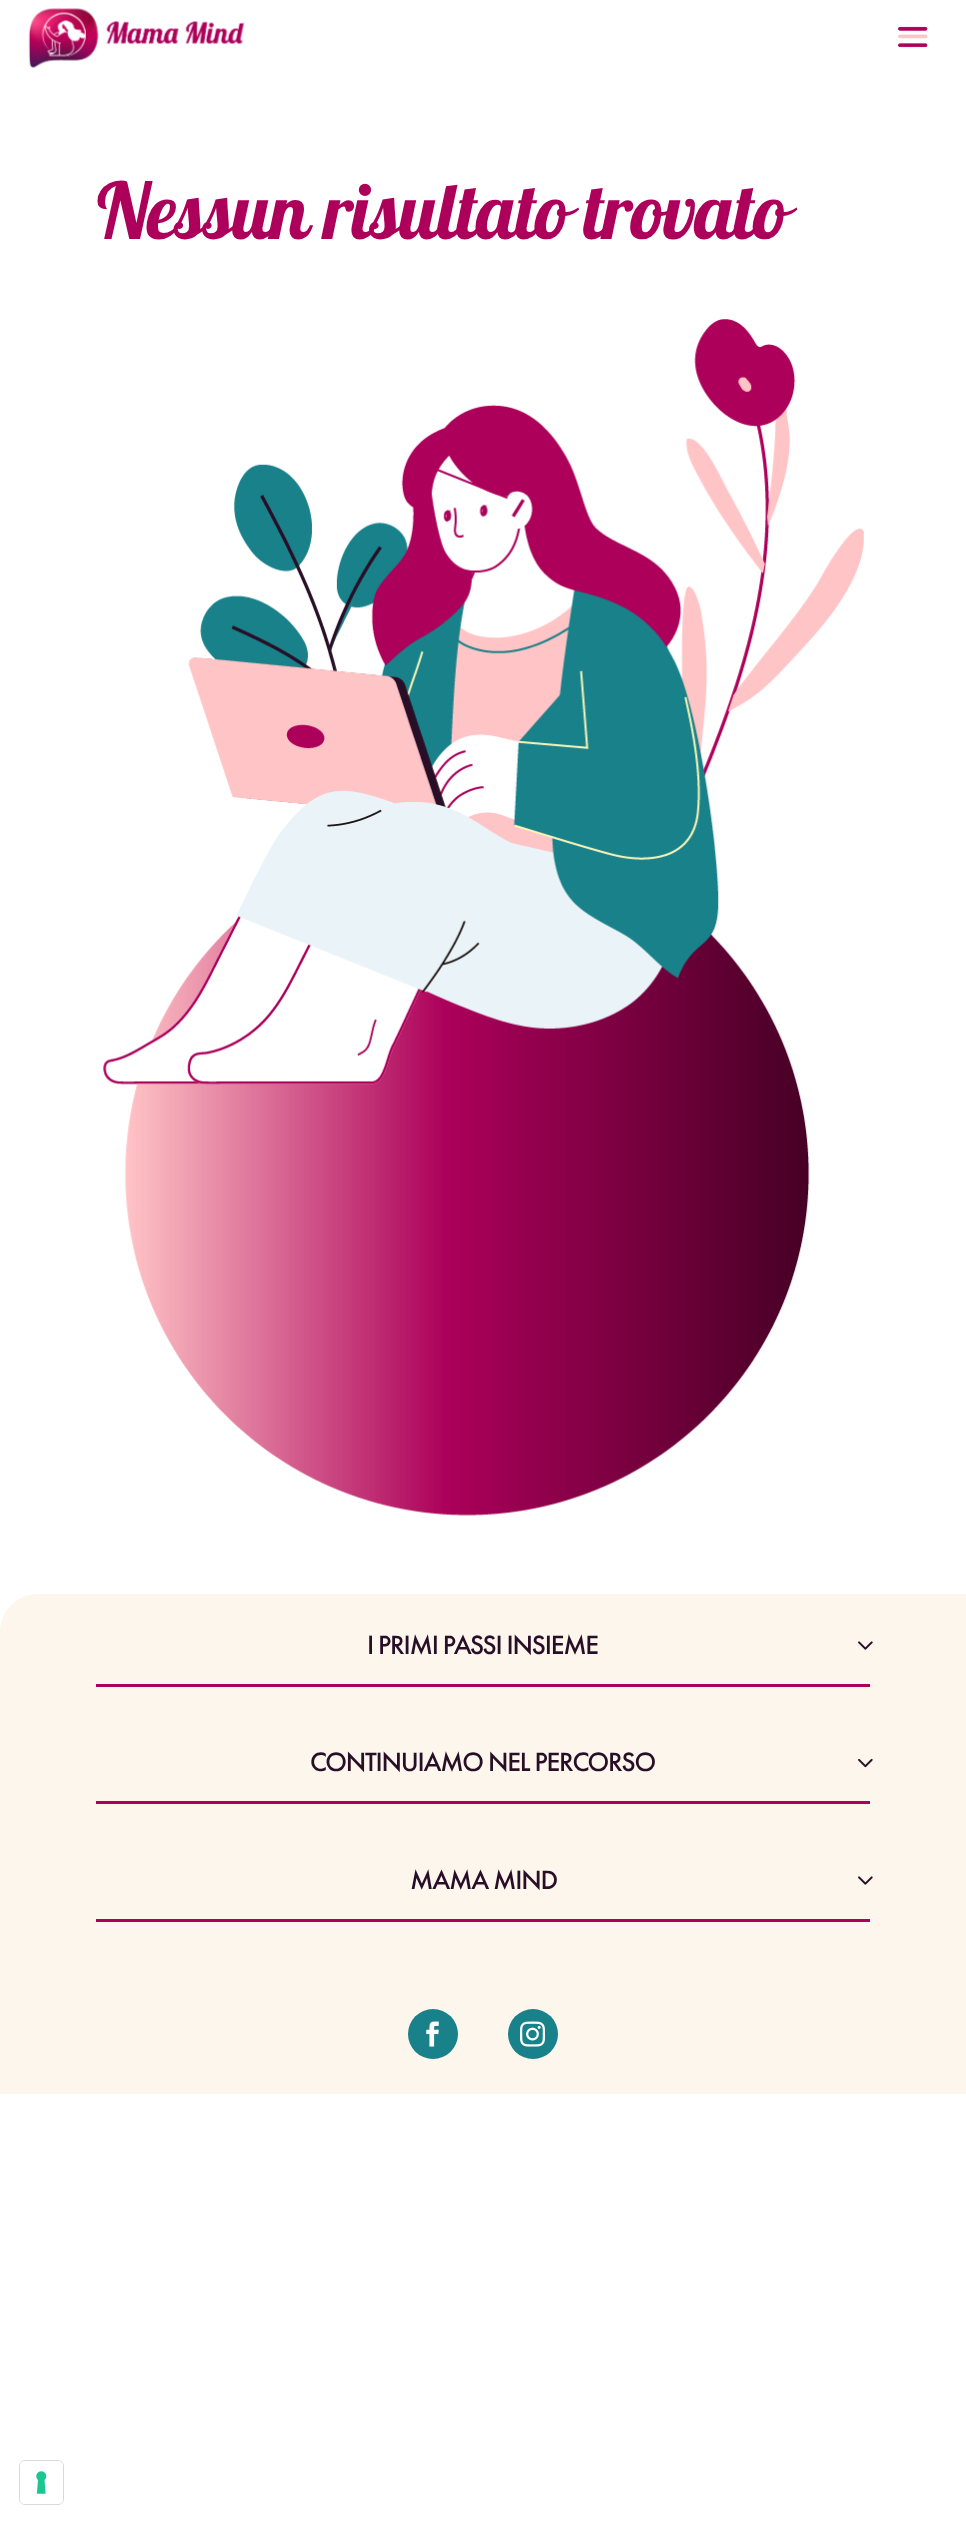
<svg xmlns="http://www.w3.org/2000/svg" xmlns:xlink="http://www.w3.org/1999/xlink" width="966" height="2523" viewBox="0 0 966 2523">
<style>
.cls-1{font:77.5px Lobster;letter-spacing:-1.25px;fill:#ac005a}
.cls-2{font:500 27.5px Futura PT;letter-spacing:-1.25px;fill:#280f27}
</style>
<rect width="100%" height="100%" fill="#ffffff"/>
<image xlink:href="image0.png" x="898" y="26" width="30" height="22"/>
<image xlink:href="image1.png" x="28" y="8" width="217" height="60"/>
<image xlink:href="image2.png" x="103" y="319" width="761" height="1197"/>
<path fill="#fdf6ec" d="M38 1594H966V2094H0V1632C0 1611 17 1594 38 1594Z"/>
<rect fill="#ac005a" x="96" y="1684" width="774" height="3"/>
<image xlink:href="image3.png" x="858" y="1641" width="15" height="9"/>
<rect fill="#ac005a" x="96" y="1801" width="774" height="3"/>
<image xlink:href="image4.png" x="858" y="1758" width="15" height="10"/>
<rect fill="#ac005a" x="96" y="1919" width="774" height="3"/>
<image xlink:href="image3.png" x="858" y="1876" width="15" height="9"/>
<circle fill="#188189" cx="433" cy="2034" r="25"/>
<image xlink:href="image5.png" x="426" y="2021" width="13" height="26"/>
<circle fill="#188189" cx="533" cy="2034" r="25"/>
<image xlink:href="image6.png" x="520" y="2021" width="25" height="26"/>
<rect fill="none" stroke="#d9d9d9" x="19.5" y="2460.5" width="44" height="44" rx="5.5"/>
<rect fill="#ffffff" x="20" y="2461" width="43" height="43" rx="5"/>
<image xlink:href="image7.png" x="36" y="2471" width="11" height="23"/>
<text class="cls-1" x="97" y="239">Nessun risultato trovato</text>
<text class="cls-2" x="367" y="1654">I PRIMI PASSI INSIEME</text>
<text class="cls-2" x="310" y="1771">CONTINUIAMO NEL PERCORSO</text>
<text class="cls-2" x="410" y="1889">MAMA MIND</text>
</svg>
